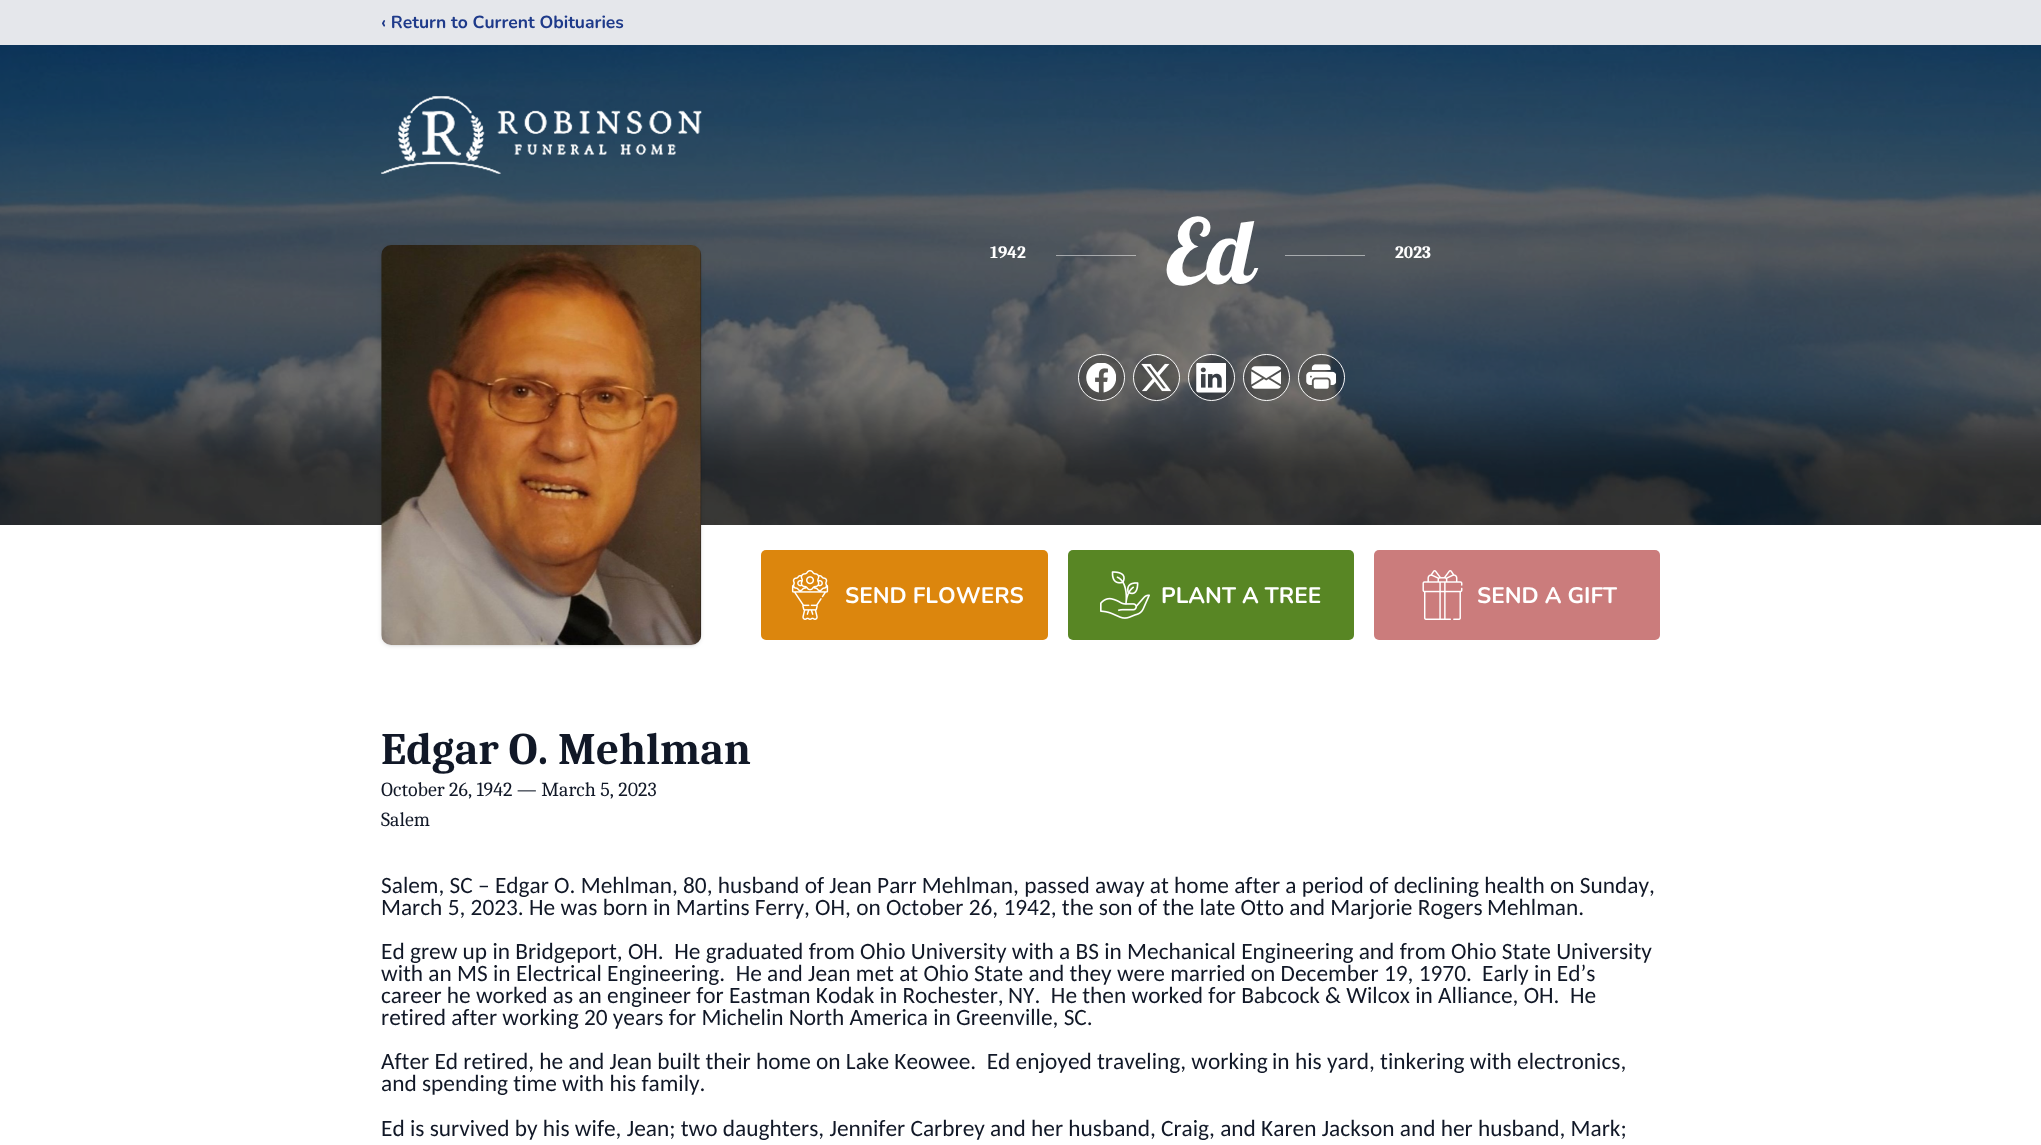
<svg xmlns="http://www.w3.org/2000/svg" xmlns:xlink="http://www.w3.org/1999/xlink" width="2041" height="1145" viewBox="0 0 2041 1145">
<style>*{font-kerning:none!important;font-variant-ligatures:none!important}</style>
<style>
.cls-1{font:bold 17.5px Nunito;fill:#1e3a8a}
.cls-2{font:bold 17.5px Caladea;fill:#ffffff}
.cls-3{font:90px Lobster;fill:#ffffff}
.cls-4{font:bold 22.5px Nunito;fill:#ffffff}
.cls-5{font:bold 45px Caladea;fill:#111827}
.cls-6{font:20px Caladea;fill:#111827}
.cls-7{font:23.33px Carlito;fill:#111827}
</style>
<rect width="100%" height="100%" fill="#ffffff"/>
<rect fill="#e5e7eb" x="0" y="0" width="2041" height="45"/>
<image xlink:href="image0.png" x="0" y="45" width="2041" height="480"/>
<image xlink:href="image1.png" x="381" y="96" width="321" height="78"/>
<rect fill="#000000" fill-opacity="0.1" filter="blur(1px)" x="383" y="248" width="317" height="397" rx="9"/>
<rect fill="#000000" fill-opacity="0.1" filter="blur(2px)" x="381" y="246" width="320" height="400" rx="10"/>
<image xlink:href="image2.png" x="381" y="245" width="321" height="400"/>
<rect fill="#ffffff" fill-opacity="0.5" x="1056" y="255" width="80" height="1"/>
<rect fill="#ffffff" fill-opacity="0.5" x="1285" y="255" width="80" height="1"/>
<circle fill="none" stroke="#ffffff" cx="1101.5" cy="377.5" r="23"/>
<circle fill="#000000" fill-opacity="0.2" cx="1101.5" cy="377.5" r="22.5"/>
<image xlink:href="image3.png" x="1086" y="363" width="30" height="30"/>
<circle fill="none" stroke="#ffffff" cx="1156.5" cy="377.5" r="23"/>
<circle fill="#000000" fill-opacity="0.2" cx="1156.5" cy="377.5" r="22.5"/>
<image xlink:href="image4.png" x="1141" y="363" width="30" height="29"/>
<circle fill="none" stroke="#ffffff" cx="1211.5" cy="377.5" r="23"/>
<circle fill="#000000" fill-opacity="0.2" cx="1211.5" cy="377.5" r="22.5"/>
<image xlink:href="image5.png" x="1196" y="363" width="30" height="30"/>
<circle fill="none" stroke="#ffffff" cx="1266.5" cy="377.5" r="23"/>
<circle fill="#000000" fill-opacity="0.2" cx="1266.5" cy="377.5" r="22.5"/>
<image xlink:href="image6.png" x="1251" y="366" width="30" height="23"/>
<circle fill="none" stroke="#ffffff" cx="1321.5" cy="377.5" r="23"/>
<circle fill="#000000" fill-opacity="0.2" cx="1321.5" cy="377.5" r="22.5"/>
<image xlink:href="image7.png" x="1306" y="364" width="30" height="25"/>
<rect fill="#dc860d" x="761" y="550" width="287" height="90" rx="5"/>
<image xlink:href="image8.png" x="791" y="570" width="38" height="50"/>
<rect fill="#588624" x="1068" y="550" width="286" height="90" rx="5"/>
<image xlink:href="image9.png" x="1100" y="571" width="50" height="48"/>
<rect fill="#cb7c7c" x="1374" y="550" width="286" height="90" rx="5"/>
<image xlink:href="image10.png" x="1422" y="570" width="41" height="50"/>
<text class="cls-1" x="381" y="28">‹ Return to Current Obituaries</text>
<text class="cls-2" x="990" y="258">1942</text>
<text class="cls-3" x="1166" y="284">Ed</text>
<text class="cls-2" x="1395" y="258">2023</text>
<text class="cls-4" x="845" y="603">SEND FLOWERS</text>
<text class="cls-4" x="1161" y="603">PLANT A TREE</text>
<text class="cls-4" x="1477" y="603">SEND A GIFT</text>
<text class="cls-5" x="381" y="764">Edgar O. Mehlman</text>
<text class="cls-6"><tspan x="381" y="796">October 26, 1942 — March 5, 2023</tspan><tspan x="381" y="826">Salem</tspan></text>
<text class="cls-7"><tspan x="381" y="893">Salem, SC – Edgar O. Mehlman, 80, husband of Jean Parr Mehlman, passed away at home after a period of declining health on Sunday,</tspan><tspan x="381" y="915">March 5, 2023. He was born in Martins Ferry, OH, on October 26, 1942, the son of the late Otto and Marjorie Rogers</tspan></text>
<text class="cls-7" x="1487" y="915">Mehlman.</text>
<text class="cls-7" xml:space="preserve"><tspan x="381" y="959">Ed grew up in Bridgeport, OH.  He graduated from Ohio University with a BS in Mechanical Engineering and from Ohio State University</tspan><tspan x="381" y="981">with an MS in Electrical Engineering.  He and Jean met at Ohio State and they were married on December 19, 1970.</tspan></text>
<text class="cls-7" x="1482" y="981">Early in Ed’s</text>
<text class="cls-7" x="381" y="1003">career he worked as an engineer for Eastman Kodak in Rochester,</text>
<text class="cls-7" xml:space="preserve" x="1008" y="1003">NY.  He then worked for Babcock</text>
<text class="cls-7" xml:space="preserve" x="1325" y="1003">&amp; Wilcox in Alliance, OH.  He</text>
<text class="cls-7" xml:space="preserve"><tspan x="381" y="1025">retired after working 20 years for Michelin North America in Greenville, SC.</tspan><tspan x="381" y="1069">After Ed retired, he and Jean built their home on Lake Keowee.  Ed enjoyed traveling, working</tspan></text>
<text class="cls-7" x="1272" y="1069">in his yard, tinkering with electronics,</text>
<text class="cls-7"><tspan x="381" y="1091">and spending time with his family.</tspan><tspan x="381" y="1136">Ed is survived by his wife, Jean; two daughters, Jennifer Carbrey and her husband, Craig, and Karen Jackson and her husband, Mark;</tspan></text>
</svg>
